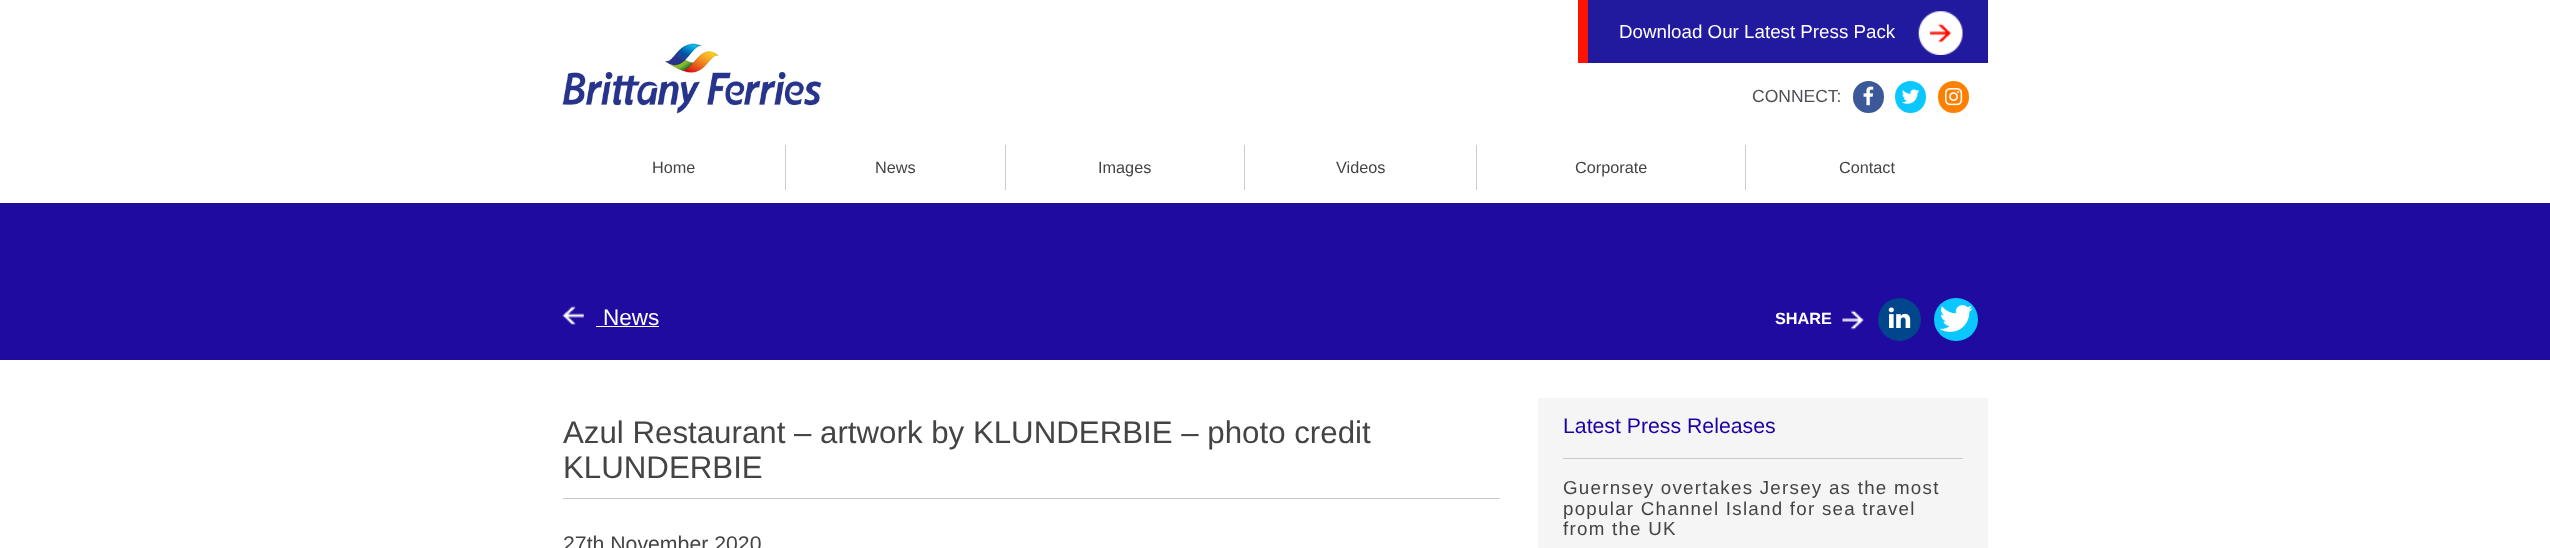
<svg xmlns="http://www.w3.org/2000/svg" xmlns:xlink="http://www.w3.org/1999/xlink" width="2550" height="548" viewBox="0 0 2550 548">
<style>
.cls-1{font:18.75px Liberation Sans;fill:#ffffff}
.cls-2{font:17.5px Liberation Sans;fill:#4e5053}
.cls-3{font:16.25px Liberation Sans;fill:#444444}
.cls-4{font:22.5px Liberation Sans;fill:#ffffff}
.cls-5{font:bold 16.25px Liberation Sans;fill:#ffffff}
.cls-6{font:31.25px Liberation Sans;fill:#444444}
.cls-7{font:21.25px Liberation Sans;fill:#444444}
.cls-8{font:21.25px Liberation Sans;fill:#1f00a4}
.cls-9{font:18.75px Liberation Sans;letter-spacing:1.25px;fill:#444444}
</style>
<rect width="100%" height="100%" fill="#ffffff"/>
<rect fill="#21199e" x="1588" y="0" width="400" height="63"/>
<rect fill="#fd1300" x="1578" y="0" width="10" height="63"/>
<image xlink:href="image0.png" x="1918" y="11" width="45" height="44"/>
<image xlink:href="image1.png" x="562" y="43" width="260" height="71"/>
<rect fill="#3b5998" x="1853" y="81" width="31" height="32" rx="15.5"/>
<image xlink:href="image2.png" x="1863" y="86" width="11" height="20"/>
<rect fill="#0ac8ff" x="1895" y="81" width="31" height="32" rx="15.5"/>
<image xlink:href="image3.png" x="1902" y="89" width="18" height="15"/>
<rect fill="#ff8000" x="1938" y="81" width="31" height="32" rx="15.5"/>
<image xlink:href="image4.png" x="1945" y="88" width="18" height="18"/>
<rect fill="#cccccc" x="785" y="145" width="1" height="45"/>
<rect fill="#cccccc" x="1005" y="145" width="1" height="45"/>
<rect fill="#cccccc" x="1244" y="145" width="1" height="45"/>
<rect fill="#cccccc" x="1476" y="145" width="1" height="45"/>
<rect fill="#cccccc" x="1745" y="145" width="1" height="45"/>
<rect fill="#200ba1" x="0" y="203" width="2550" height="157"/>
<image xlink:href="image5.png" x="562" y="306" width="22" height="19"/>
<rect fill="#ffffff" x="596" y="326" width="63" height="1"/>
<image xlink:href="image6.png" x="1842" y="310" width="22" height="20"/>
<circle fill="#00468c" cx="1899.5" cy="319.5" r="21.5"/>
<image xlink:href="image7.png" x="1888" y="307" width="23" height="21"/>
<rect fill="#0ac8ff" x="1934" y="298" width="44" height="43" rx="21.5"/>
<image xlink:href="image8.png" x="1940" y="305" width="33" height="27"/>
<rect fill="#cacaca" x="563" y="498" width="937" height="1"/>
<rect fill="#f5f5f5" x="1538" y="398" width="450" height="150"/>
<rect fill="#cacaca" x="1563" y="458" width="400" height="1"/>
<text class="cls-1" x="1619" y="38">Download Our Latest Press Pack</text>
<text class="cls-2" x="1752" y="102">CONNECT:</text>
<text class="cls-3" x="652" y="173">Home</text>
<text class="cls-3" x="875" y="173">News</text>
<text class="cls-3" x="1098" y="173">Images</text>
<text class="cls-3" x="1336" y="173">Videos</text>
<text class="cls-3" x="1575" y="173">Corporate</text>
<text class="cls-3" x="1839" y="173">Contact</text>
<text class="cls-4" x="603" y="325">News</text>
<text class="cls-5" x="1775" y="324">SHARE</text>
<text class="cls-6"><tspan x="563" y="443">Azul Restaurant – artwork by KLUNDERBIE – photo credit</tspan><tspan x="563" y="478">KLUNDERBIE</tspan></text>
<text class="cls-7" x="563" y="551">27th November 2020</text>
<text class="cls-8" x="1563" y="433">Latest Press Releases</text>
<text class="cls-9"><tspan x="1563" y="494">Guernsey overtakes Jersey as the most</tspan><tspan x="1563" y="515">popular Channel Island for sea travel</tspan><tspan x="1563" y="535">from the UK</tspan></text>
</svg>
